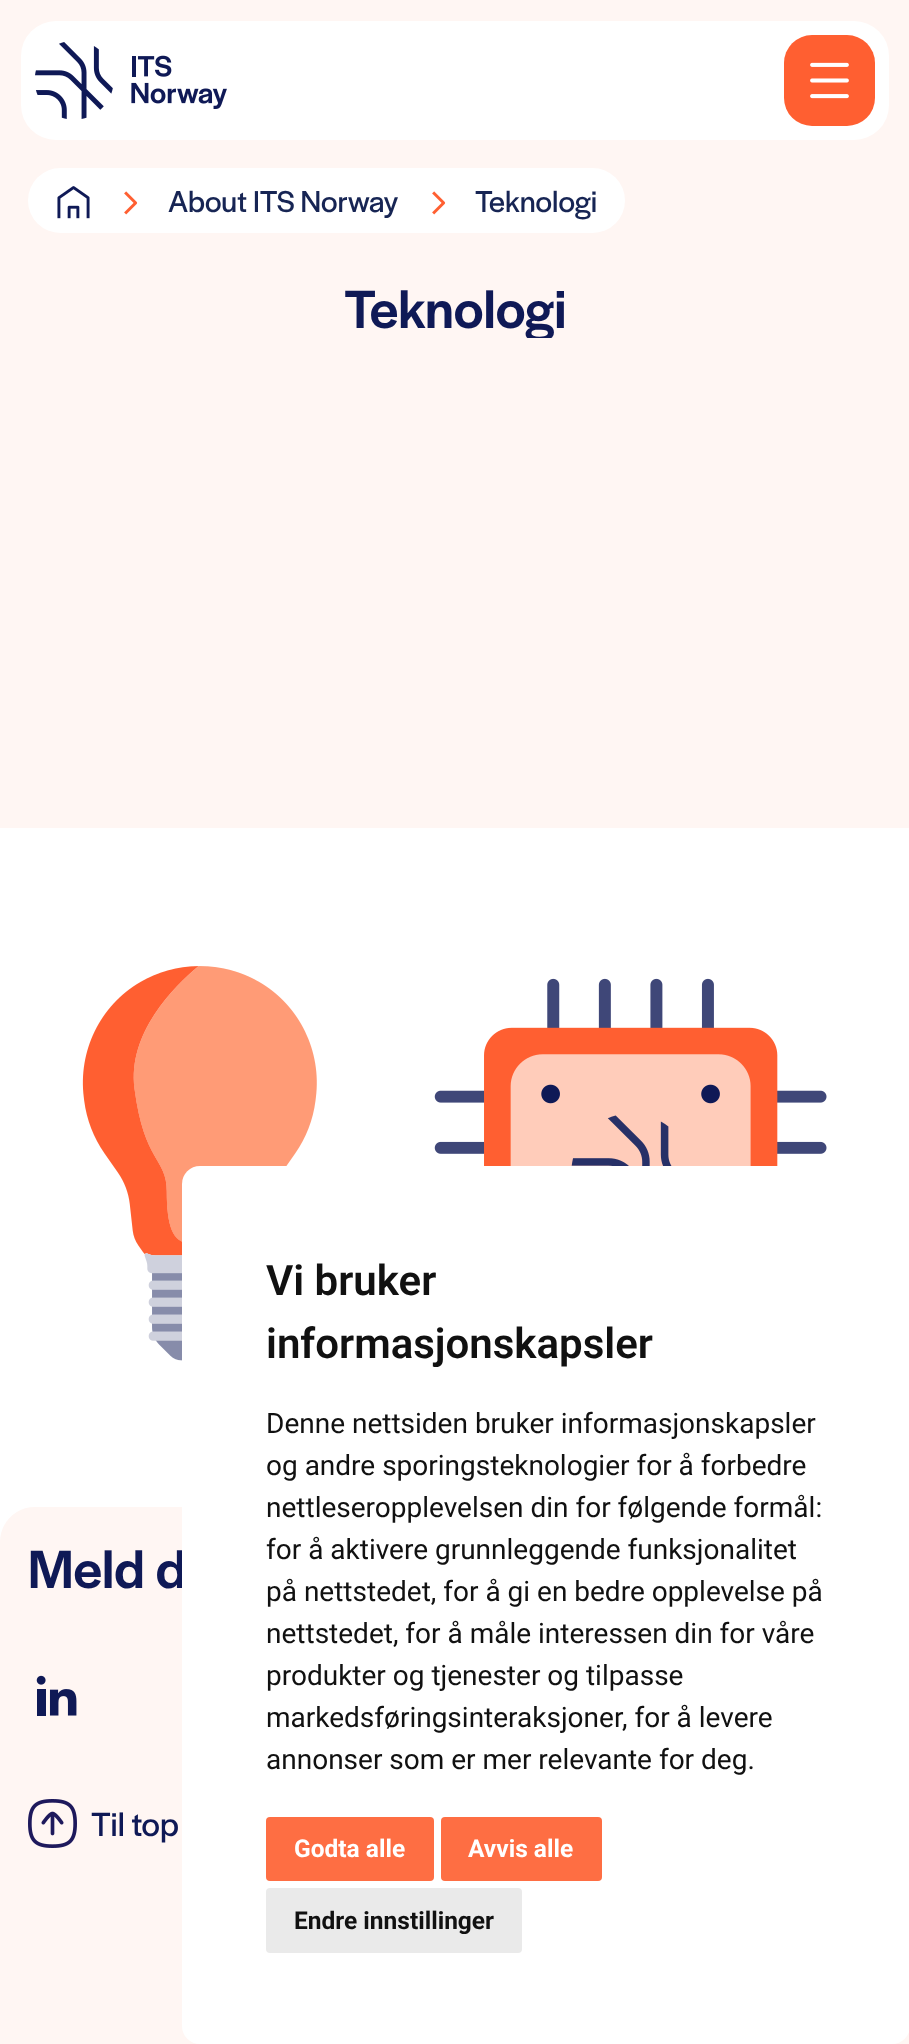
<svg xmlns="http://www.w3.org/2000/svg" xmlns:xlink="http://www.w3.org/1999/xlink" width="909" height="2044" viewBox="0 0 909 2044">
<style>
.cls-1{font:31.5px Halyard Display;fill:#172554}
.cls-2{font:500 56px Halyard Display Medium;fill:#0f1956}
.cls-3{font:35px Halyard Display;fill:#0f1956}
.cls-4{font:600 42px Roboto;fill:#111111}
.cls-5{font:28px Roboto;fill:#111111}
.cls-6{font:bold 24.5px Roboto;fill:#ffffff}
.cls-7{font:bold 24.5px Roboto;fill:#111111}
</style>
<defs>
<clipPath id="clip1"><rect x="28" y="233" width="854" height="105"/></clipPath>
</defs>
<rect width="100%" height="100%" fill="#ffffff"/>
<rect fill="#fff6f3" x="0" y="0" width="909" height="828"/>
<rect fill="#ffffff" x="21" y="21" width="868" height="119" rx="35"/>
<image xlink:href="image0.png" x="35" y="42" width="192" height="77"/>
<rect fill="#ff5f31" x="784" y="35" width="91" height="91" rx="28"/>
<image xlink:href="image1.png" x="810" y="62" width="39" height="37"/>
<rect fill="#ffffff" x="28" y="168" width="597" height="65" rx="32.5"/>
<image xlink:href="image2.png" x="57" y="186" width="33" height="33"/>
<image xlink:href="image3.png" x="124" y="191" width="14" height="24"/>
<image xlink:href="image3.png" x="432" y="191" width="14" height="24"/>
<image xlink:href="image4.png" x="82" y="966" width="745" height="395"/>
<path fill="#fff6f3" d="M35 1507H875C894.5 1507 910 1522.5 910 1542V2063H0V1542C0 1522.5 15.5 1507 35 1507Z"/>
<image xlink:href="image5.png" x="36" y="1675" width="41" height="41"/>
<image xlink:href="image6.png" x="28" y="1799" width="49" height="49"/>
<text class="cls-1" x="168" y="212">About ITS Norway</text>
<text class="cls-1" x="475" y="212">Teknologi</text>
<g clip-path="url(#clip1)">
<text class="cls-2" x="344" y="328">Teknologi</text>
</g>
<text class="cls-2" x="28" y="1588">Meld d</text>
<text class="cls-3" x="91" y="1836">Til top</text>
<rect fill="#ffffff" x="182" y="1166" width="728" height="878" rx="18"/>
<text class="cls-4"><tspan x="266" y="1295">Vi bruker</tspan><tspan x="266" y="1358">informasjonskapsler</tspan></text>
<text class="cls-5"><tspan x="266" y="1433">Denne nettsiden bruker informasjonskapsler</tspan><tspan x="266" y="1475">og andre sporingsteknologier for å forbedre</tspan><tspan x="266" y="1517">nettleseropplevelsen din for følgende formål:</tspan><tspan x="266" y="1559">for å aktivere grunnleggende funksjonalitet</tspan><tspan x="266" y="1601">på nettstedet, for å gi en bedre opplevelse på</tspan><tspan x="266" y="1643">nettstedet, for å måle interessen din for våre</tspan><tspan x="266" y="1685">produkter og tjenester og tilpasse</tspan><tspan x="266" y="1727">markedsføringsinteraksjoner</tspan></text>
<text class="cls-5" x="622" y="1727">, for å levere</text>
<text class="cls-5" x="266" y="1769">annonser som er mer relevante for deg.</text>
<rect fill="#fe6e43" x="266" y="1817" width="168" height="64" rx="4"/>
<text class="cls-6" x="294" y="1857">Godta alle</text>
<rect fill="#fe6e43" x="441" y="1817" width="161" height="64" rx="4"/>
<text class="cls-6" x="468" y="1857">Avvis alle</text>
<rect fill="#eaeaea" x="266" y="1888" width="256" height="65" rx="4"/>
<text class="cls-7" x="294" y="1929">Endre innstillinger</text>
</svg>
